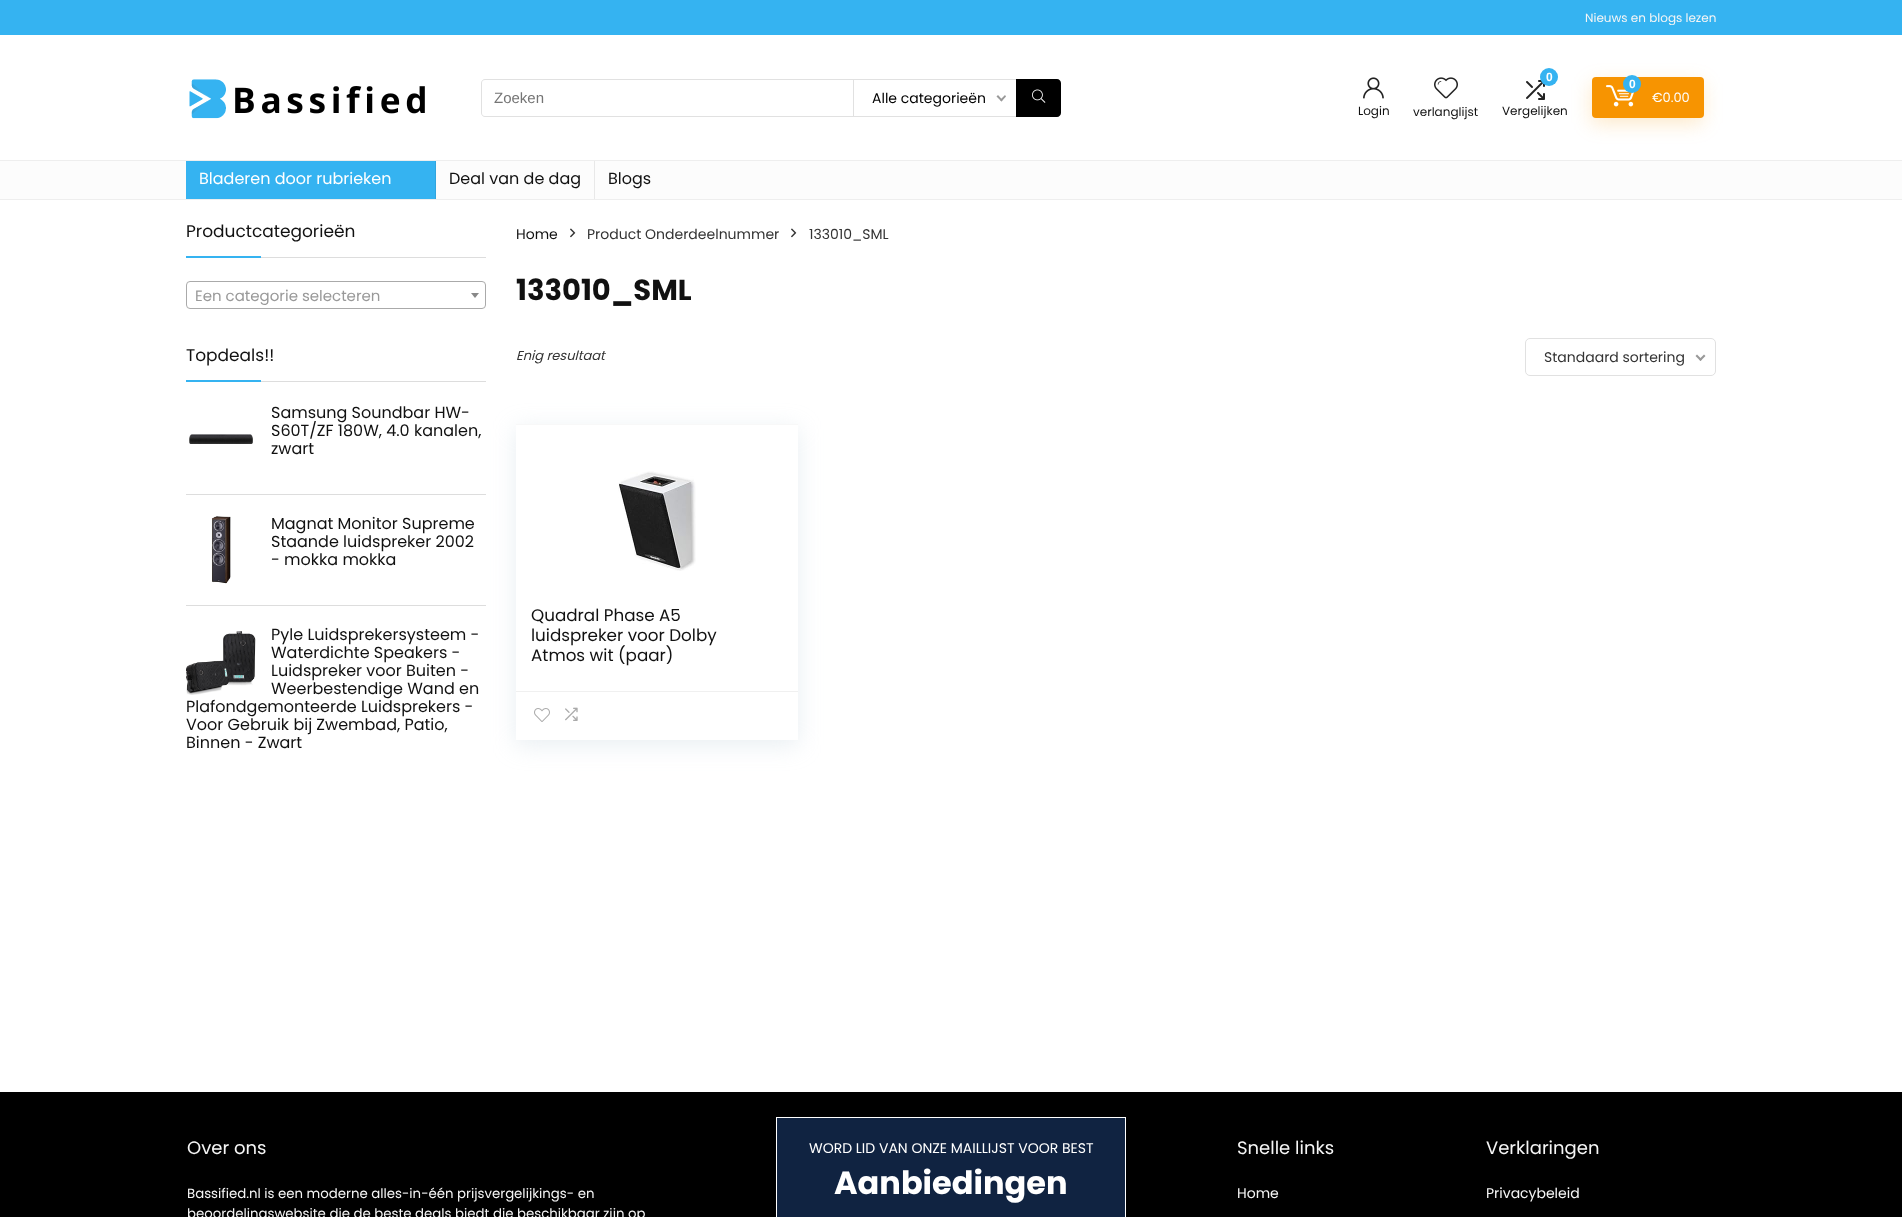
<svg xmlns="http://www.w3.org/2000/svg" xmlns:xlink="http://www.w3.org/1999/xlink" width="1902" height="1217" viewBox="0 0 1902 1217">
<style>
.cls-1{font:12px Poppins;fill:#f5f5f5}
.cls-2{font:15px Liberation Sans;fill:#757575}
.cls-3{font:14px Poppins;fill:#000000}
.cls-4{font:bold 12px Liberation Sans;fill:#ffffff}
.cls-5{font:12px Poppins;fill:#111111}
.cls-6{font:13px Poppins;fill:#ffffff}
.cls-7{font:16px Poppins;fill:#ffffff}
.cls-8{font:16px Poppins;fill:#111111}
.cls-9{font:17px Poppins;fill:#111111}
.cls-10{font:15px Poppins;fill:#999999}
.cls-11{font:14px Poppins;fill:#111111}
.cls-12{font:14px Poppins;fill:#333333}
.cls-13{font:bold 29px Poppins;fill:#111111}
.cls-14{font:italic 13px Poppins;fill:#333333}
.cls-15{font:16.75px Poppins;fill:#111111}
.cls-16{font:18px Poppins;fill:#f5f5f5}
.cls-17{font:13.3px Poppins;fill:#f5f5f5}
.cls-18{font:14px Poppins;fill:#ffffff}
.cls-19{font:bold 32px Poppins;fill:#ffffff}
.cls-20{font:14px Poppins;fill:#f5f5f5}
</style>
<defs>
<clipPath id="clip1"><path d="M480 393H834V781H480ZM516 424H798V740H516Z" clip-rule="evenodd"/></clipPath>
<clipPath id="clip2"><rect x="1585" y="10" width="131" height="15"/></clipPath>
</defs>
<rect width="100%" height="100%" fill="#ffffff"/>
<rect fill="#35b3f1" x="0" y="0" width="1902" height="35"/>
<image xlink:href="image0.png" x="189" y="79" width="236" height="40"/>
<path fill="#e1e1e1" fill-rule="evenodd" d="M485 79H853V117H485C483 117 481 115 481 113V83C481 81 483 79 485 79ZM485 80H853V116H485C483 116 482 115 482 113V83C482 81 483 80 485 80Z"/>
<rect fill="#e1e1e1" x="853" y="79" width="163" height="1"/>
<rect fill="#e1e1e1" x="853" y="116" width="163" height="1"/>
<rect fill="#e1e1e1" x="853" y="79" width="1" height="38"/>
<path fill="#999999" d="M1005 95L1006 96.5L1001.5 101.5L1000 100Z"/>
<path fill="#999999" d="M998 95L1002.5 100L1001.5 101.5L996.5 96.5Z"/>
<path fill="#000000" d="M1016 79H1057C1059 79 1061 81 1061 83V113C1061 115 1059 117 1057 117H1016Z"/>
<image xlink:href="image1.png" x="1032" y="89" width="14" height="14"/>
<image xlink:href="image2.png" x="1526" y="80" width="19" height="20"/>
<circle fill="#35b3f1" cx="1549" cy="77" r="9"/>
<rect fill="#f79401" fill-opacity="0.2" filter="blur(9.5px)" x="1591" y="83" width="112" height="41" rx="4"/>
<rect fill="#f79401" x="1592" y="77" width="112" height="41" rx="4"/>
<image xlink:href="image3.png" x="1606" y="85" width="28" height="22"/>
<circle fill="#35b3f1" cx="1632" cy="84" r="9"/>
<image xlink:href="image4.png" x="1363" y="77" width="21" height="22"/>
<image xlink:href="image5.png" x="1434" y="77" width="24" height="22"/>
<rect fill="#fcfcfc" x="0" y="161" width="1902" height="38"/>
<rect fill="#eeeeee" x="0" y="160" width="1902" height="1"/>
<rect fill="#eeeeee" x="0" y="199" width="1902" height="1"/>
<rect fill="#35b3f1" x="186" y="161" width="249" height="38"/>
<rect fill="#31a5de" x="435" y="161" width="1" height="38"/>
<rect fill="#e8e8e8" x="594" y="161" width="1" height="38"/>
<rect fill="#dddddd" x="261" y="257" width="225" height="1"/>
<rect fill="#35b3f1" x="186" y="256" width="75" height="2"/>
<rect fill="none" stroke="#aaaaaa" x="186.5" y="281.5" width="299" height="27" rx="3.5"/>
<path fill="#888888" d="M471 293H479L475 298Z"/>
<rect fill="#dddddd" x="261" y="381" width="225" height="1"/>
<rect fill="#35b3f1" x="186" y="380" width="75" height="2"/>
<rect fill="#dddddd" x="186" y="494" width="300" height="1"/>
<image xlink:href="image6.png" x="189" y="434" width="64" height="10"/>
<rect fill="#dddddd" x="186" y="605" width="300" height="1"/>
<image xlink:href="image7.png" x="211" y="516" width="20" height="68"/>
<image xlink:href="image8.png" x="186" y="631" width="70" height="64"/>
<image xlink:href="image9.png" x="570" y="228" width="6" height="10"/>
<image xlink:href="image9.png" x="791" y="228" width="6" height="10"/>
<rect fill="none" stroke="#e1e1e1" x="1525.5" y="338.5" width="190" height="37" rx="4.5"/>
<path fill="#999999" d="M1704 354.5L1705.5 356L1700.5 361L1699 359.5Z"/>
<path fill="#999999" d="M1697 354.5L1702 359.5L1700.5 361L1695.5 356Z"/>
<g clip-path="url(#clip1)">
<rect fill="#bccfdb" fill-opacity="0.35" filter="blur(11.5px)" x="516" y="429" width="282" height="316"/>
</g>
<rect fill="#f8f8f8" x="516" y="424" width="282" height="1"/>
<image xlink:href="image10.png" x="618" y="471" width="78" height="100"/>
<rect fill="#f0f0f0" x="516" y="691" width="282" height="1"/>
<image xlink:href="image11.png" x="534" y="708" width="16" height="14"/>
<image xlink:href="image12.png" x="565" y="707" width="13" height="14"/>
<rect fill="#000000" x="0" y="1092" width="1902" height="125"/>
<rect fill="#102341" stroke="#ffffff" x="776.5" y="1117.5" width="349" height="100"/>
<g clip-path="url(#clip2)">
<text class="cls-1" x="1585" y="22">Nieuws en blogs lezen</text>
</g>
<text class="cls-2" x="494" y="103">Zoeken</text>
<text class="cls-3" x="872" y="103">Alle categorieën</text>
<text class="cls-4" x="1546" y="81">0</text>
<text class="cls-5" x="1502" y="115">Vergelijken</text>
<text class="cls-4" x="1629" y="88">0</text>
<text class="cls-6" x="1652" y="102">€0.00</text>
<text class="cls-5" x="1358" y="115">Login</text>
<text class="cls-5" x="1413" y="116">verlanglijst</text>
<text class="cls-7" x="199" y="184">Bladeren door rubrieken</text>
<text class="cls-8" x="449" y="184">Deal van de dag</text>
<text class="cls-8" x="608" y="184">Blogs</text>
<text class="cls-9" x="186" y="237">Productcategorieën</text>
<text class="cls-10" x="195" y="301">Een categorie selecteren</text>
<text class="cls-9" x="186" y="361">Topdeals!!</text>
<text class="cls-8"><tspan x="271" y="418">Samsung Soundbar HW-</tspan><tspan x="271" y="436">S60T/ZF 180W, 4.0 kanalen,</tspan><tspan x="271" y="454">zwart</tspan></text>
<text class="cls-8"><tspan x="271" y="529">Magnat Monitor Supreme</tspan><tspan x="271" y="547">Staande luidspreker 2002</tspan><tspan x="271" y="565">- mokka mokka</tspan></text>
<text class="cls-8"><tspan x="271" y="640">Pyle Luidsprekersysteem -</tspan><tspan x="271" y="658">Waterdichte Speakers -</tspan><tspan x="271" y="676">Luidspreker voor Buiten -</tspan><tspan x="271" y="694">Weerbestendige Wand en</tspan></text>
<text class="cls-8"><tspan x="186" y="712">Plafondgemonteerde Luidsprekers -</tspan><tspan x="186" y="730">Voor Gebruik bij Zwembad, Patio,</tspan><tspan x="186" y="748">Binnen - Zwart</tspan></text>
<text class="cls-11" x="516" y="239">Home</text>
<text class="cls-12" x="587" y="239">Product Onderdeelnummer</text>
<text class="cls-12" x="809" y="239">133010_SML</text>
<text class="cls-13" x="516" y="300">133010_SML</text>
<text class="cls-14" x="516" y="360">Enig resultaat</text>
<text class="cls-12" x="1544" y="362">Standaard sortering</text>
<text class="cls-15"><tspan x="531" y="621">Quadral Phase A5</tspan><tspan x="531" y="641">luidspreker voor Dolby</tspan><tspan x="531" y="661">Atmos wit (paar)</tspan></text>
<text class="cls-16" x="187" y="1154">Over ons</text>
<text class="cls-17"><tspan x="187" y="1198">Bassified.nl is een moderne alles-in-één prijsvergelijkings- en</tspan><tspan x="187" y="1218">beoordelingswebsite die de beste deals biedt die beschikbaar zijn op</tspan></text>
<text class="cls-18" x="809" y="1153">WORD LID VAN ONZE MAILLIJST VOOR BEST</text>
<text class="cls-19" x="834" y="1194">Aanbiedingen</text>
<text class="cls-16" x="1237" y="1154">Snelle links</text>
<text class="cls-20" x="1237" y="1198">Home</text>
<text class="cls-16" x="1486" y="1154">Verklaringen</text>
<text class="cls-20" x="1486" y="1198">Privacybeleid</text>
</svg>
